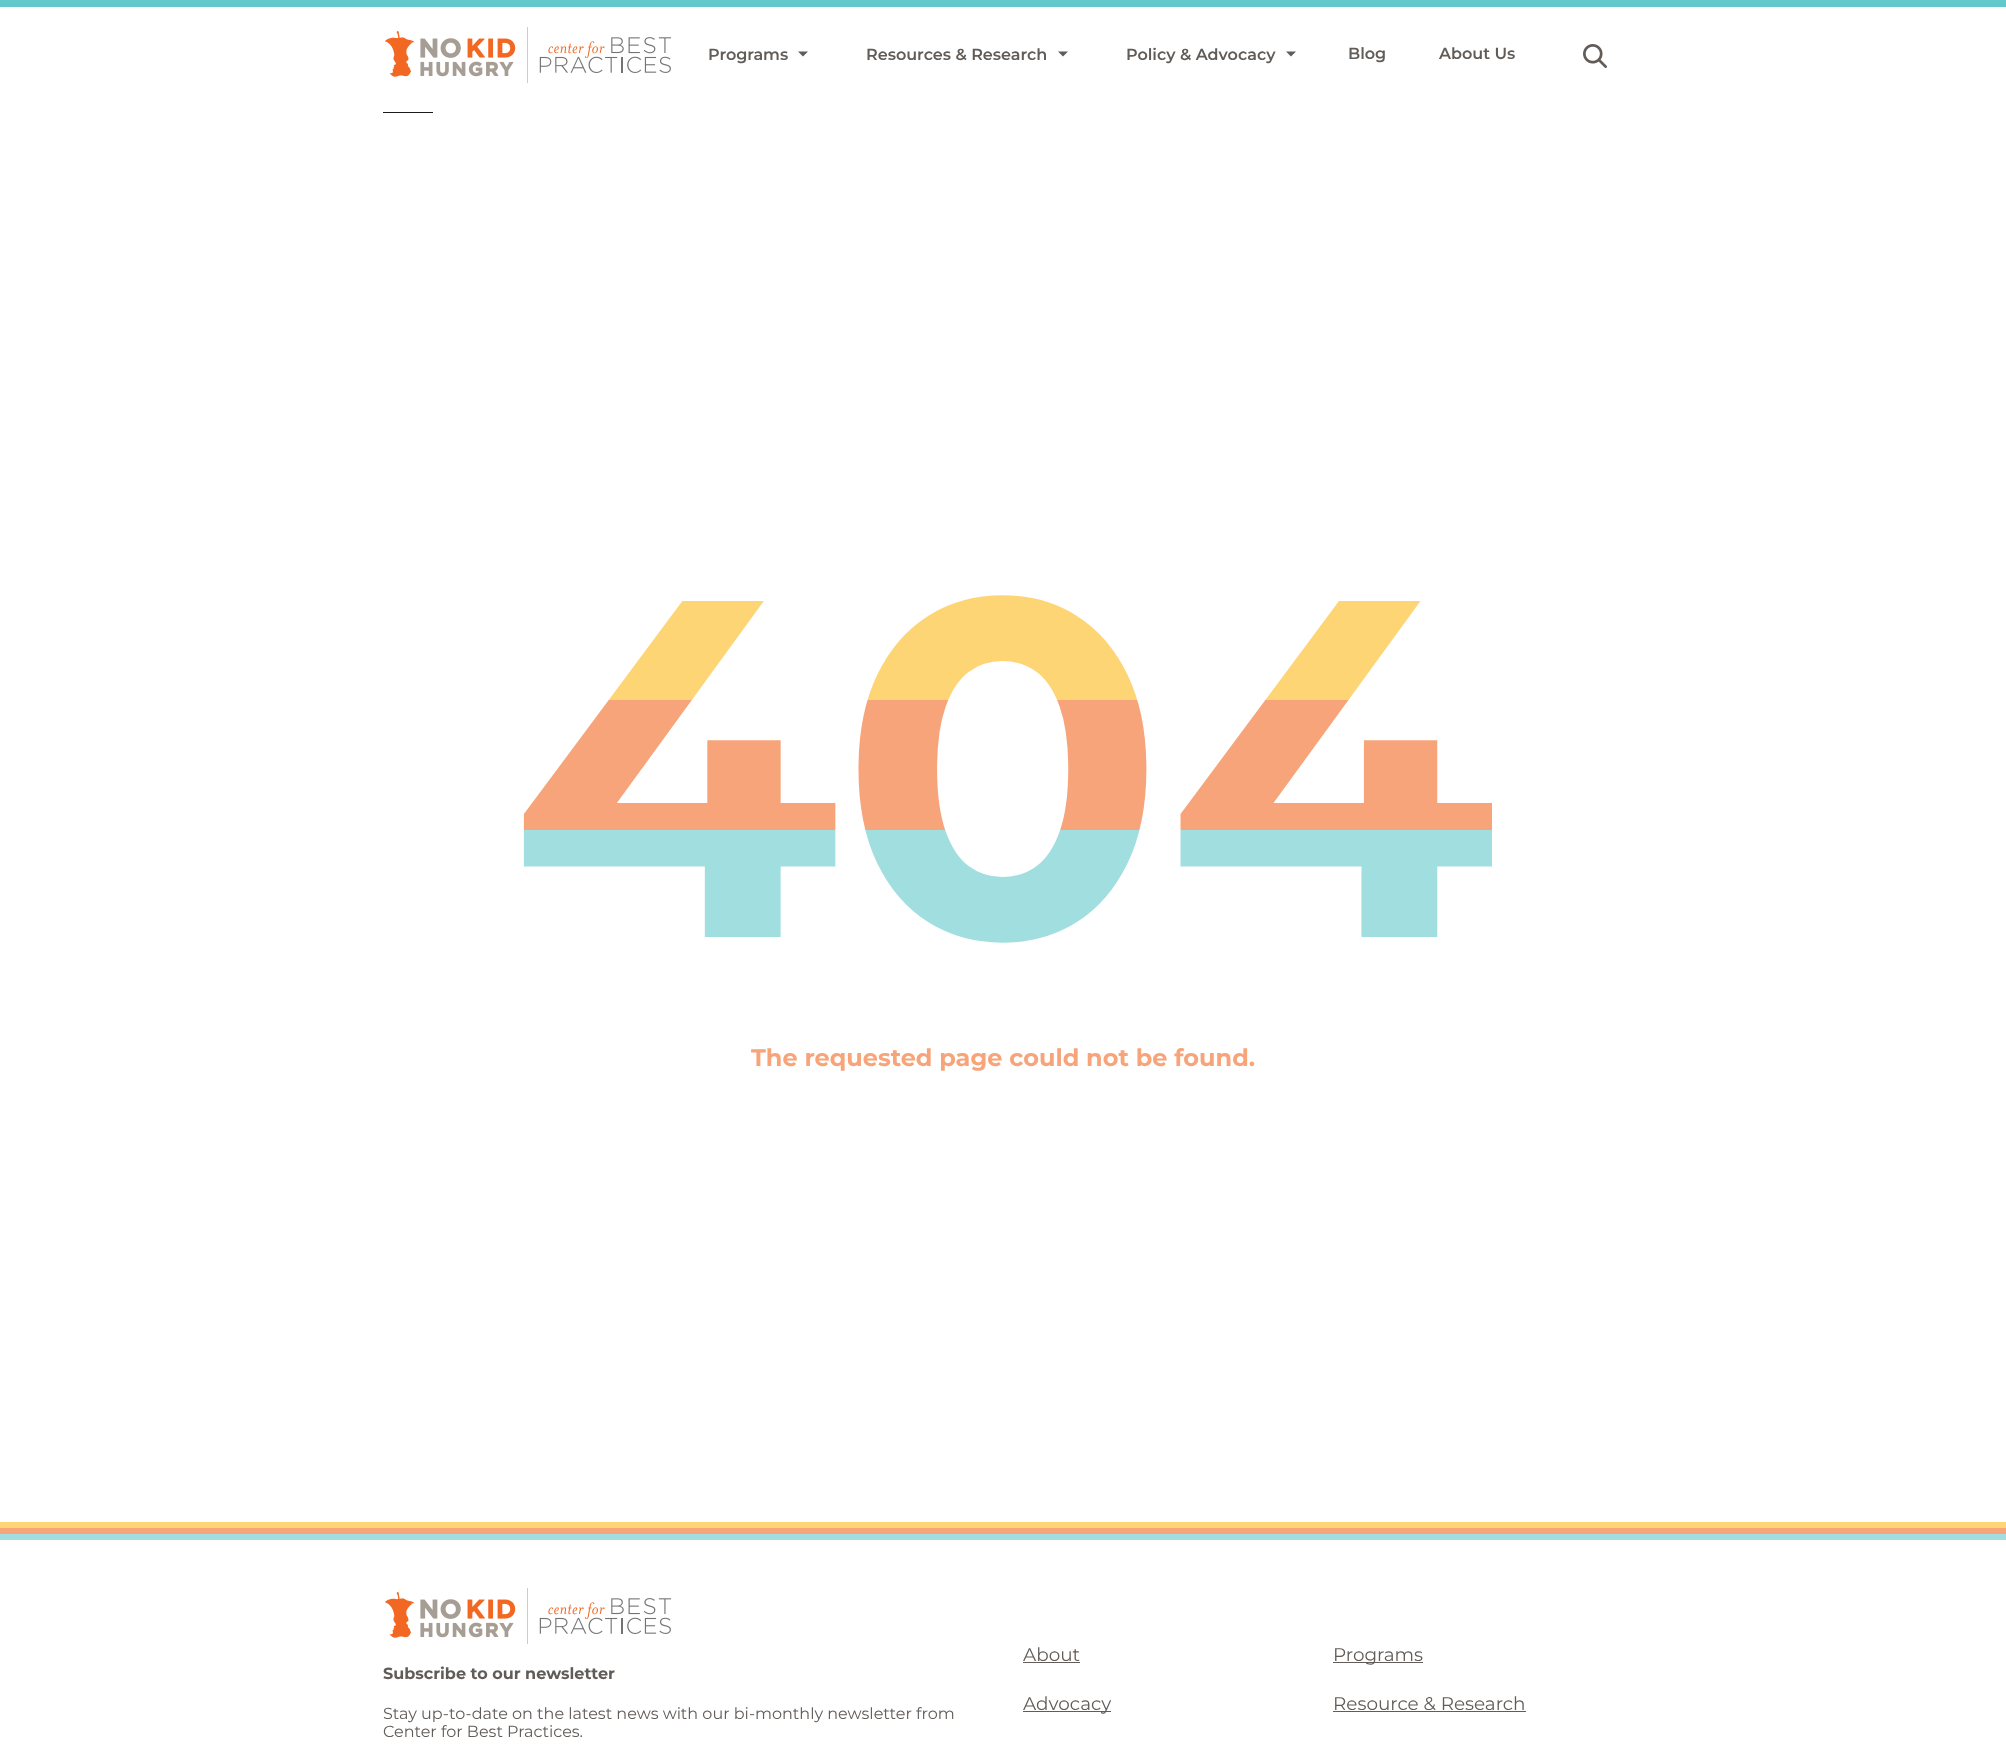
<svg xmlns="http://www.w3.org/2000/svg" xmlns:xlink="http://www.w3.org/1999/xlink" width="2006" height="1747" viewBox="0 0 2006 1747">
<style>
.cls-1{font:600 16px Montserrat;fill:#625c58}
.cls-2{font:bold 480px Montserrat;fill:url(#g1)}
.cls-3{font:bold 24px Montserrat;fill:#f7a47a}
.cls-4{font:bold 16px Montserrat;fill:#625c58}
.cls-5{font:16px Montserrat;fill:#625c58}
.cls-6{font:18.4px Montserrat;fill:#625c58}
</style>
<defs>
<linearGradient id="g1" gradientUnits="userSpaceOnUse" x1="1003" y1="573" x2="1003" y2="957"><stop offset="0" stop-color="#fed574"/><stop offset="0.33" stop-color="#fed574"/><stop offset="0.33" stop-color="#f7a47a"/><stop offset="0.67" stop-color="#f7a47a"/><stop offset="0.67" stop-color="#a1dee0"/><stop offset="1" stop-color="#a1dee0"/></linearGradient>
</defs>
<rect width="100%" height="100%" fill="#ffffff"/>
<rect fill="#63c8cc" x="0" y="0" width="2006" height="7"/>
<rect fill="#cccccc" x="527" y="27" width="1" height="56"/>
<image xlink:href="image0.png" x="385" y="31" width="131" height="46"/>
<image xlink:href="image1.png" x="539" y="37" width="132" height="36"/>
<path fill="#625c58" d="M803 56.5L798 51.5H808Z"/>
<path fill="#625c58" d="M1063 56.5L1058 51.5H1068Z"/>
<path fill="#625c58" d="M1291 56.5L1286 51.5H1296Z"/>
<image xlink:href="image2.png" x="1583" y="44" width="24" height="24"/>
<rect fill="#1c1c1c" x="383" y="112" width="50" height="1"/>
<rect fill="#fed574" x="0" y="1522" width="2006" height="6"/>
<rect fill="#f7a47a" x="0" y="1528" width="2006" height="6"/>
<rect fill="#a1dee0" x="0" y="1534" width="2006" height="6"/>
<rect fill="#cccccc" x="527" y="1588" width="1" height="56"/>
<image xlink:href="image3.png" x="385" y="1592" width="131" height="46"/>
<image xlink:href="image4.png" x="539" y="1598" width="132" height="36"/>
<rect fill="#625c58" x="1023" y="1662" width="57" height="1"/>
<rect fill="#625c58" x="1333" y="1662" width="90" height="1"/>
<rect fill="#625c58" x="1023" y="1711" width="88" height="1"/>
<rect fill="#625c58" x="1333" y="1711" width="193" height="1"/>
<text class="cls-1" x="708" y="60">Programs</text>
<text class="cls-1" x="866" y="60">Resources &amp; Research</text>
<text class="cls-1" x="1126" y="60">Policy &amp; Advocacy</text>
<text class="cls-1" x="1348" y="59">Blog</text>
<text class="cls-1" x="1439" y="59">About Us</text>
<text class="cls-2" x="509" y="937">404</text>
<text class="cls-3" x="751" y="1066">The requested page could not be found.</text>
<text class="cls-4" x="383" y="1679">Subscribe to our newsletter</text>
<text class="cls-5"><tspan x="383" y="1719">Stay up-to-date on the latest news with our bi-monthly newsletter from</tspan><tspan x="383" y="1737">Center for Best Practices.</tspan></text>
<text class="cls-6" x="1023" y="1661">About</text>
<text class="cls-6" x="1333" y="1661">Programs</text>
<text class="cls-6" x="1023" y="1710">Advocacy</text>
<text class="cls-6" x="1333" y="1710">Resource &amp; Research</text>
</svg>
